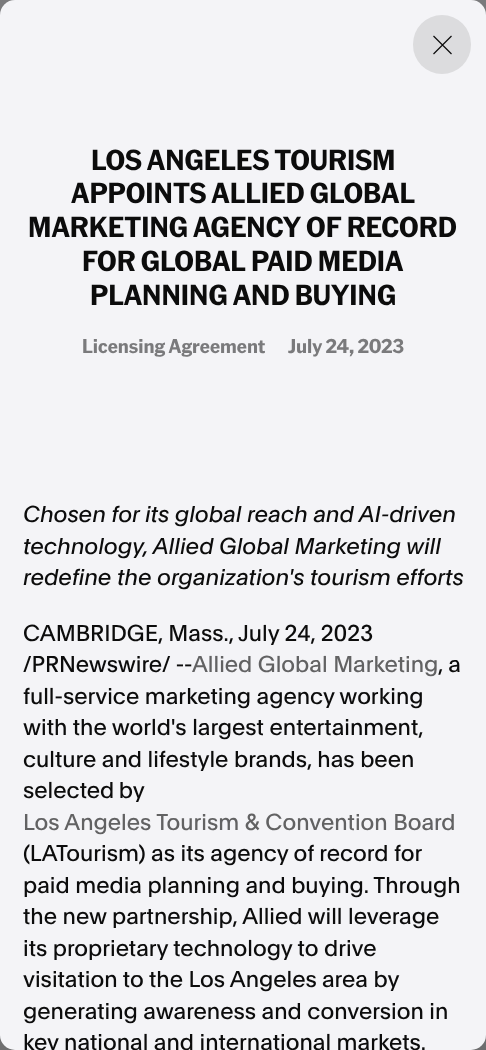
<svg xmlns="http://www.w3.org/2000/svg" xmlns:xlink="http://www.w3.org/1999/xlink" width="486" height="1050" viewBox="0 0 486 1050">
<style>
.cls-1{font:bold 28.1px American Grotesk;fill:#0c0c0c}
.cls-2{font:bold 19.5px American Grotesk;fill:#7a7a7c}
.cls-3{font:italic 22.5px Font;fill:#0c0c0c}
.cls-4{font:22.5px Font;fill:#0c0c0c}
.cls-5{font:22.5px Font;fill:#626263}
</style>
<rect width="100%" height="100%" fill="#7a7a7c"/>
<rect fill="#6e6e6f" x="0" y="1035" width="486" height="15"/>
<rect fill="#f4f4f7" x="0" y="0" width="486" height="1050" rx="15"/>
<rect fill="#dcdcde" x="413" y="15" width="58" height="59" rx="29"/>
<path fill="none" stroke="#0c0c0c" stroke-width="1.2" stroke-linejoin="round" d="M451.5 36L433.5 54M451.5 54L433.5 36"/>
<text class="cls-1" x="91" y="170">LOS ANGELES TOURISM</text>
<text class="cls-1" x="71" y="203">APPOINTS ALLIED GLOBAL</text>
<text class="cls-1" x="28" y="237">MARKETING AGENCY OF RECORD</text>
<text class="cls-1" x="82" y="271">FOR GLOBAL PAID MEDIA</text>
<text class="cls-1" x="90" y="305">PLANNING AND BUYING</text>
<text class="cls-2" x="82" y="353">Licensing Agreement</text>
<text class="cls-2" x="288" y="353">July 24, 2023</text>
<text class="cls-3"><tspan x="23" y="522">Chosen for its global reach and AI-driven</tspan><tspan x="23" y="554">technology, Allied Global Marketing will</tspan><tspan x="23" y="585">redefine the organization's tourism efforts</tspan></text>
<text class="cls-4" x="23" y="641">CAMBRIDGE, Mass.,</text>
<text class="cls-4" x="238" y="641">July 24, 2023</text>
<text class="cls-4" x="23" y="672">/PRNewswire/ --</text>
<text class="cls-5" x="192" y="672">Allied Global Marketing</text>
<text class="cls-4" x="438" y="672">, a</text>
<text class="cls-4"><tspan x="23" y="704">full-service marketing agency working</tspan><tspan x="23" y="735">with the world's largest entertainment,</tspan><tspan x="23" y="767">culture and lifestyle brands, has been</tspan><tspan x="23" y="798" word-spacing="-1">selected by</tspan></text>
<text class="cls-5" x="23" y="830">Los Angeles Tourism &amp; Convention Board</text>
<text class="cls-4"><tspan x="23" y="861">(LATourism) as its agency of record for</tspan><tspan x="23" y="893">paid media planning and buying. Through</tspan><tspan x="23" y="924">the new partnership, Allied will leverage</tspan><tspan x="23" y="956">its proprietary technology to drive</tspan><tspan x="23" y="987">visitation to the Los Angeles</tspan></text>
<text class="cls-4" x="322" y="987">area by</text>
<text class="cls-4"><tspan x="23" y="1019">generating awareness and conversion in</tspan><tspan x="23" y="1050">key national and international markets.</tspan></text>
</svg>
